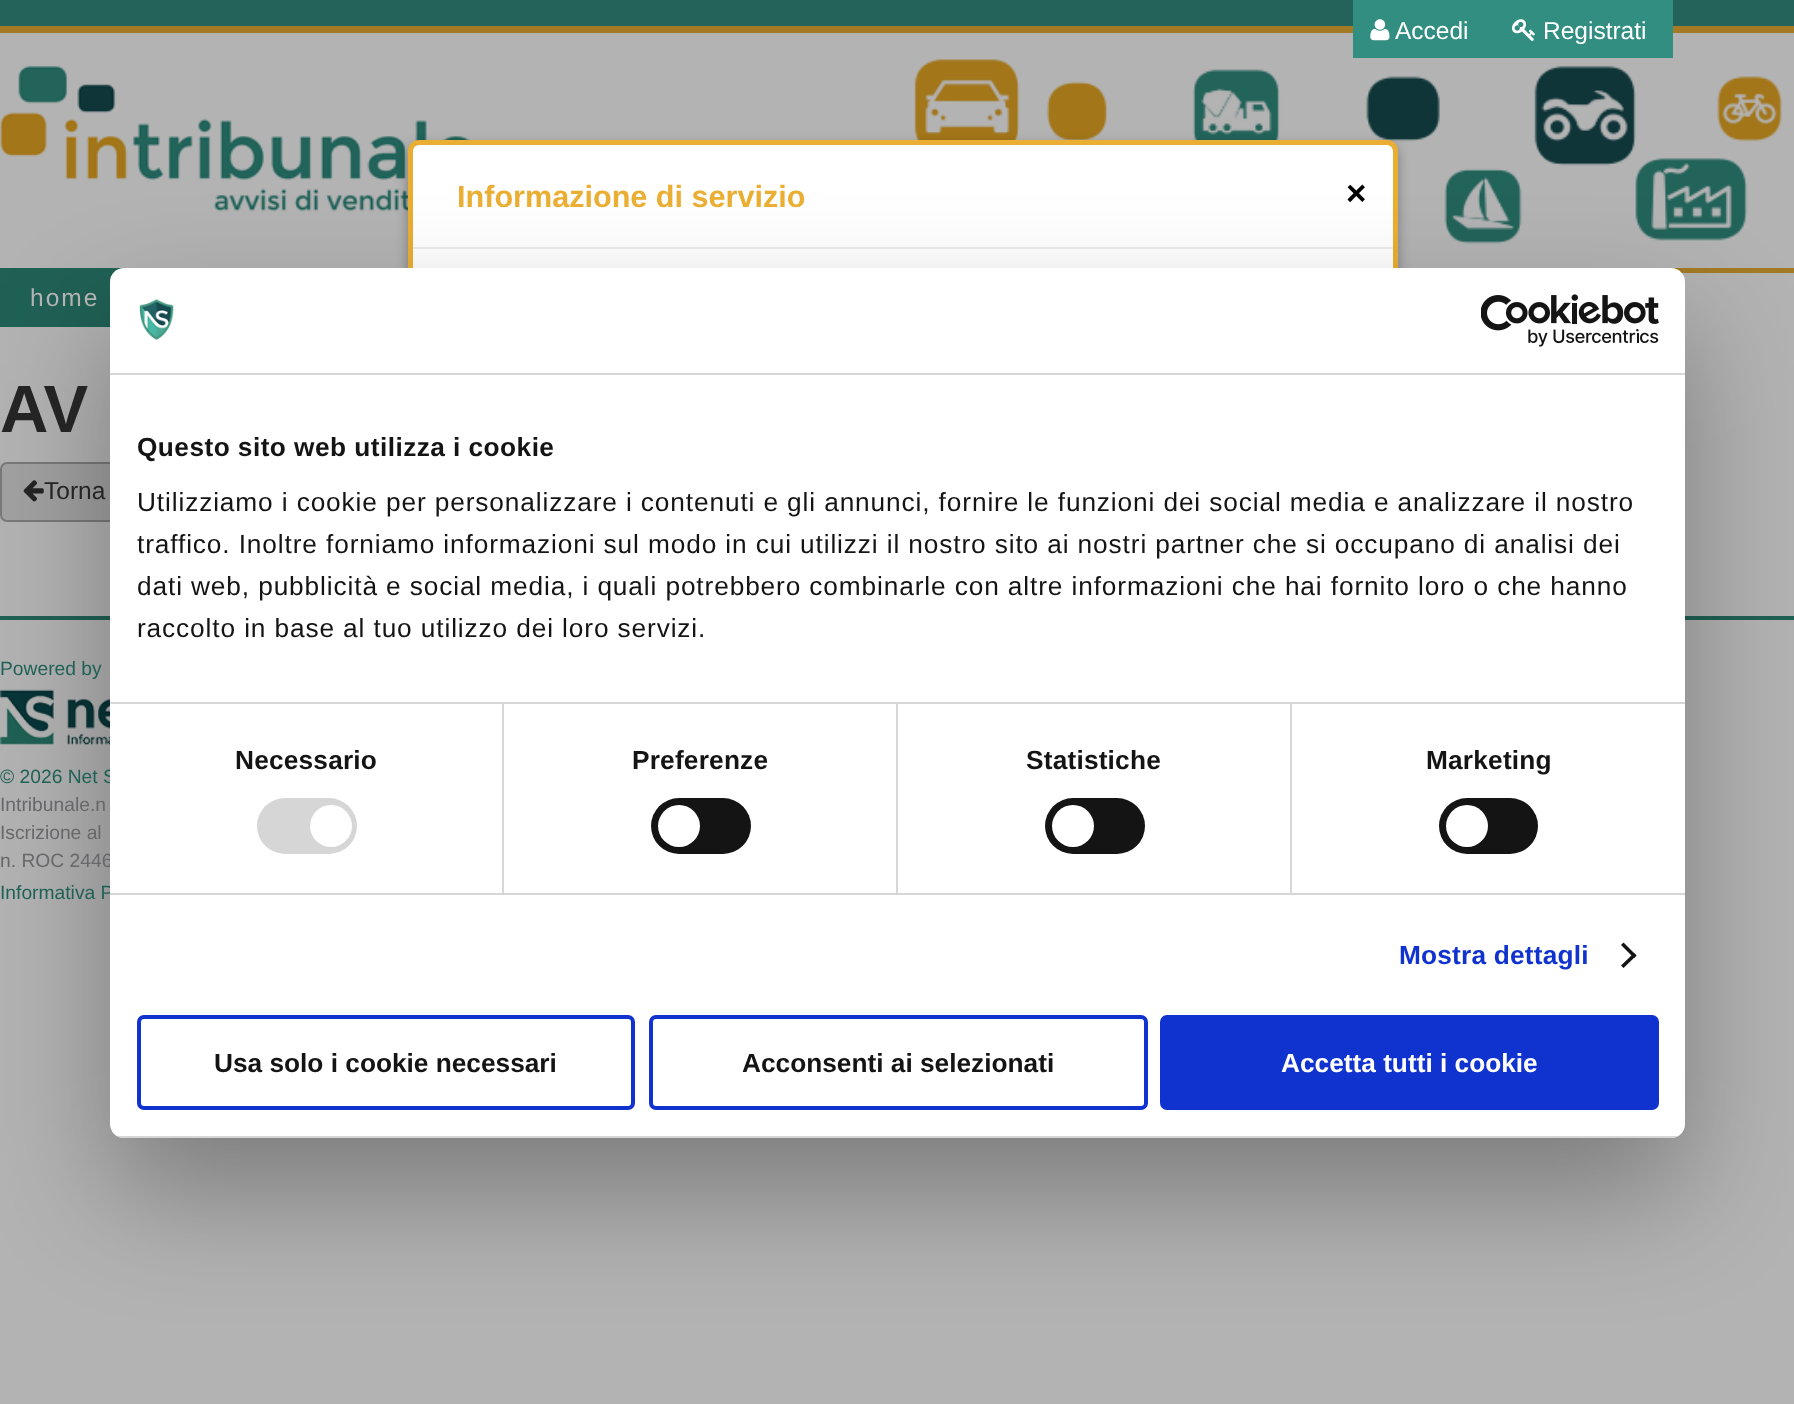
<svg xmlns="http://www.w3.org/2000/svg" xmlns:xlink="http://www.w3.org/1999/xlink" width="1794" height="1404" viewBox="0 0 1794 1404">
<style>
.cls-1{font:24.5px Liberation Sans;fill:#ffffff}
.cls-2{font:bold 30.6px Liberation Sans;fill:#eaae33}
.cls-3{font:bold 35px Liberation Sans;fill:#000000}
.cls-4{font:19.25px Liberation Sans;fill:#206155}
.cls-5{font:19.25px Liberation Sans;fill:#68686b}
.cls-6{font:24.5px Liberation Sans;letter-spacing:2px;fill:#b3b3b3}
.cls-7{font:bold 67px Liberation Sans;fill:#242424}
.cls-8{font:24.5px Liberation Sans;fill:#242424}
.cls-9{font:bold 26.25px Liberation Sans;letter-spacing:0.45px;fill:#141414}
.cls-10{font:26.25px Liberation Sans;letter-spacing:0.88px;fill:#141414}
.cls-11{font:bold 26.25px Liberation Sans;letter-spacing:0.2px;fill:#141414}
.cls-12{font:bold 26.25px Liberation Sans;letter-spacing:0.2px;fill:#1032cf}
.cls-13{font:bold 26.25px Liberation Sans;fill:#141414}
.cls-14{font:bold 26.25px Liberation Sans;fill:#ffffff}
</style>
<defs>
<clipPath id="clip1"><rect x="110" y="268" width="1575" height="870" rx="14"/></clipPath>
</defs>
<rect width="100%" height="100%" fill="#b3b3b3"/>
<rect fill="#23635a" x="0" y="0" width="1794" height="26"/>
<rect fill="#328e81" x="1353" y="0" width="320" height="2"/>
<rect fill="#a47a24" x="0" y="26" width="1794" height="7"/>
<rect fill="#328e81" x="1353" y="2" width="320" height="56"/>
<image xlink:href="image0.png" x="1370" y="19" width="20" height="22"/>
<image xlink:href="image1.png" x="1512" y="19" width="23" height="22"/>
<rect fill="#206155" x="0" y="616" width="1794" height="4"/>
<image xlink:href="image3.png" x="0" y="65" width="573" height="151"/>
<image xlink:href="image4.png" x="914" y="59" width="868" height="185"/>
<rect fill="#000000" fill-opacity="0.3" filter="blur(6px)" x="408" y="145" width="990" height="559" rx="11"/>
<rect fill="#ffffff" x="413" y="145" width="980" height="548" rx="5"/>
<rect fill="none" stroke="#eaae33" stroke-width="5" x="410.5" y="142.5" width="985" height="553" rx="8.5"/>
<rect fill="#eeeeee" x="413" y="247" width="980" height="2"/>
<image xlink:href="image2.png" x="0" y="689" width="110" height="57"/>
<rect fill="#a47a24" x="1671" y="268" width="123" height="5"/>
<rect fill="#206155" x="0" y="268" width="124" height="59"/>
<rect fill="#a1a1a1" stroke="#797979" stroke-width="2" x="1" y="463" width="264" height="58" rx="6"/>
<image xlink:href="image5.png" x="23" y="480" width="21" height="22"/>
<rect fill="#000000" fill-opacity="0.3" filter="blur(59.5px)" x="110" y="324" width="1575" height="870" rx="14"/>
<text class="cls-1" x="1395" y="39">Accedi</text>
<text class="cls-1" x="1543" y="39">Registrati</text>
<text class="cls-2" x="457" y="207">Informazione di servizio</text>
<text class="cls-3" x="1346" y="205">×</text>
<text class="cls-4" x="0" y="675">Powered by</text>
<text class="cls-4" x="0" y="783">© 2026 Net S</text>
<text class="cls-5"><tspan x="0" y="811">Intribunale.n</tspan><tspan x="0" y="839">Iscrizione al</tspan><tspan x="0" y="867">n. ROC 2446</tspan></text>
<text class="cls-4" x="0" y="899">Informativa P</text>
<text class="cls-6" x="30" y="306">home</text>
<text class="cls-7" x="0" y="432">AV</text>
<text class="cls-8" x="44" y="499">Torna</text>
<rect fill="#ffffff" x="110" y="268" width="1575" height="870" rx="14"/>
<rect fill="#d6d6d6" x="110" y="373" width="1575" height="2"/>
<image xlink:href="image6.png" x="139" y="299" width="35" height="41"/>
<image xlink:href="image7.png" x="1481" y="294" width="178" height="53"/>
<rect fill="#d6d6d6" x="110" y="702" width="1575" height="2"/>
<text class="cls-9" x="137" y="456">Questo sito web utilizza i cookie</text>
<text class="cls-10"><tspan x="137" y="511">Utilizziamo i cookie per personalizzare i contenuti e gli annunci, fornire le funzioni dei social media e analizzare il nostro</tspan><tspan x="137" y="553">traffico. Inoltre forniamo informazioni sul modo in cui utilizzi il nostro sito ai nostri partner che si occupano di analisi dei</tspan><tspan x="137" y="595">dati web, pubblicità e social media, i quali potrebbero combinarle con altre informazioni che hai fornito loro o che hanno</tspan><tspan x="137" y="637">raccolto in base al tuo utilizzo dei loro servizi.</tspan></text>
<rect fill="#d6d6d6" x="110" y="893" width="1575" height="2"/>
<rect fill="#e5e5e5" x="110" y="702" width="1" height="2"/>
<rect fill="#d6d6d6" x="502" y="704" width="2" height="189"/>
<text class="cls-11" x="235" y="769">Necessario</text>
<rect fill="#d6d6d6" x="257" y="798" width="100" height="56" rx="28"/>
<circle fill="#ffffff" cx="331" cy="826" r="21"/>
<rect fill="#d6d6d6" x="896" y="704" width="2" height="189"/>
<text class="cls-11" x="632" y="769">Preferenze</text>
<rect fill="#141414" x="651" y="798" width="100" height="56" rx="28"/>
<circle fill="#ffffff" cx="679" cy="826" r="21"/>
<rect fill="#d6d6d6" x="1290" y="704" width="2" height="189"/>
<text class="cls-11" x="1026" y="769">Statistiche</text>
<rect fill="#141414" x="1045" y="798" width="100" height="56" rx="28"/>
<circle fill="#ffffff" cx="1073" cy="826" r="21"/>
<text class="cls-11" x="1426" y="769">Marketing</text>
<rect fill="#141414" x="1439" y="798" width="99" height="56" rx="28"/>
<circle fill="#ffffff" cx="1467" cy="826" r="21"/>
<text class="cls-12" x="1399" y="964">Mostra dettagli</text>
<path fill="#141414" d="M1623.5 942.5L1636.5 955.5L1634 958L1621 945Z"/>
<path fill="#141414" d="M1634 953L1636.5 955.5L1623.5 968L1621 965.5Z"/>
<g clip-path="url(#clip1)">
<rect fill="#d6d6d6" x="110" y="1136" width="1575" height="2"/>
</g>
<rect fill="none" stroke="#1032cf" stroke-width="4" x="139" y="1017" width="494" height="91" rx="5"/>
<text class="cls-13" x="214" y="1072">Usa solo i cookie necessari</text>
<rect fill="none" stroke="#1032cf" stroke-width="4" x="651" y="1017" width="495" height="91" rx="5"/>
<text class="cls-13" x="742" y="1072">Acconsenti ai selezionati</text>
<rect fill="#1032cf" stroke="#1032cf" stroke-width="4" x="1162" y="1017" width="495" height="91" rx="5"/>
<text class="cls-14" x="1281" y="1072">Accetta tutti i cookie</text>
</svg>
